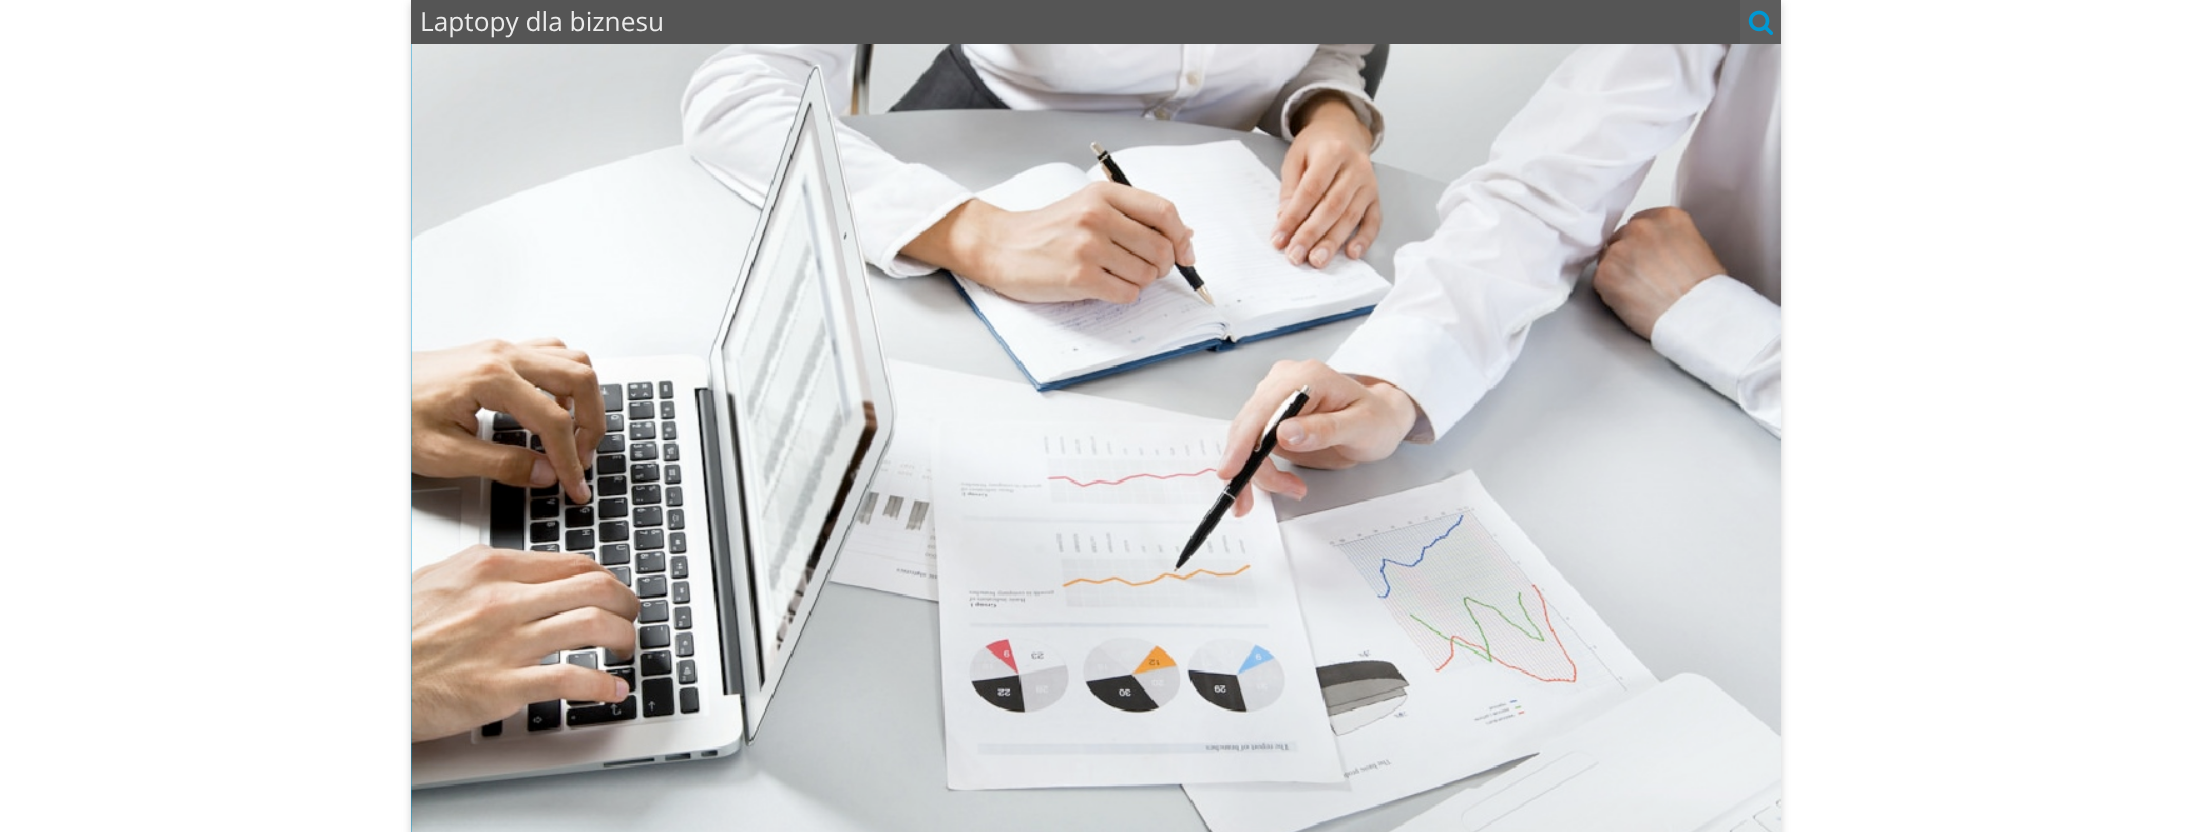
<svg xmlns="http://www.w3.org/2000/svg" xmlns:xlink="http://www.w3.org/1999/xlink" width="2192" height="832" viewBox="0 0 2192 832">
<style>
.cls-1{font:26.25px Open Sans;fill:#eaeaea}
</style>
<rect width="100%" height="100%" fill="#ffffff"/>
<rect fill="#646464" fill-opacity="0.3" filter="blur(4px)" x="411" y="3" width="1370" height="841"/>
<rect fill="#555555" x="411" y="0" width="1329" height="44"/>
<rect fill="#5d5d5d" x="1740" y="0" width="41" height="44"/>
<image xlink:href="image0.png" x="1748" y="10" width="26" height="25"/>
<rect fill="#0098d3" x="411" y="44" width="1" height="788"/>
<image xlink:href="image1.png" x="411" y="44" width="1371" height="788"/>
<text class="cls-1" x="420" y="31">Laptopy dla biznesu</text>
</svg>
